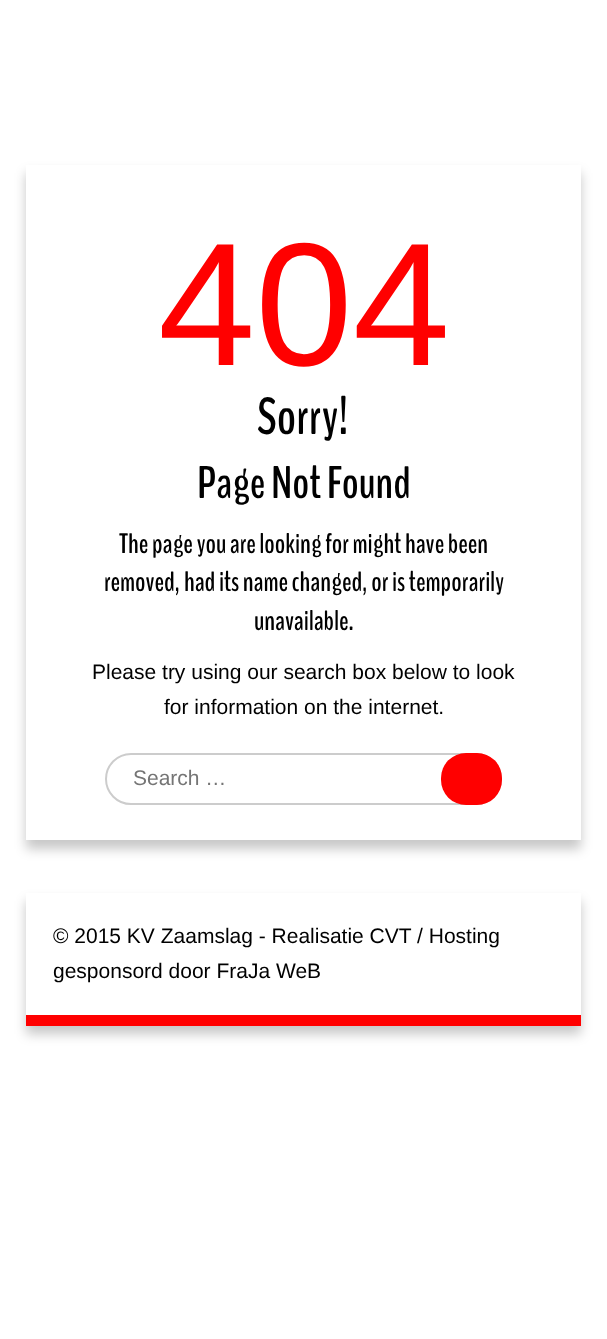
<svg xmlns="http://www.w3.org/2000/svg" xmlns:xlink="http://www.w3.org/1999/xlink" width="607" height="1339" viewBox="0 0 607 1339">
<style>
.cls-1{font:175px Liberation Sans;fill:#ff0000}
.cls-2{font:bold 52px BenchNine;fill:#000000}
.cls-3{font:bold 45.5px BenchNine;fill:#000000}
.cls-4{font:bold 28px BenchNine;fill:#000000}
.cls-5{font:21px Liberation Sans;fill:#000000}
.cls-6{font:21px Liberation Sans;fill:#757575}
</style>
<rect width="100%" height="100%" fill="#ffffff"/>
<rect fill="#000000" fill-opacity="0.22" filter="blur(6px)" x="26" y="173" width="555" height="676"/>
<rect fill="#ffffff" x="26" y="165" width="555" height="675"/>
<rect fill="none" stroke="#cccccc" stroke-width="2" x="106" y="754" width="395" height="50" rx="25"/>
<rect fill="#ff0000" x="441" y="753" width="61" height="52" rx="25"/>
<rect fill="#000000" fill-opacity="0.22" filter="blur(6px)" x="26" y="901" width="555" height="133"/>
<rect fill="#ffffff" x="26" y="893" width="555" height="122"/>
<rect fill="#ff0000" x="26" y="1015" width="555" height="11"/>
<text class="cls-1" x="158" y="365">404</text>
<text class="cls-2" x="257" y="434">Sorry!</text>
<text class="cls-3" x="197" y="498">Page Not Found</text>
<text class="cls-4" x="119" y="553">The page you are looking for might have been</text>
<text class="cls-4" x="104" y="591">removed, had its name changed, or is temporarily</text>
<text class="cls-4" x="254" y="630">unavailable.</text>
<text class="cls-5" x="92" y="679">Please try using our search box below to look</text>
<text class="cls-5" x="164" y="714">for information on the internet.</text>
<text class="cls-6" x="133" y="785">Search …</text>
<text class="cls-5"><tspan x="53" y="943">© 2015 KV Zaamslag - Realisatie CVT / Hosting</tspan><tspan x="53" y="978">gesponsord door FraJa WeB</tspan></text>
</svg>
